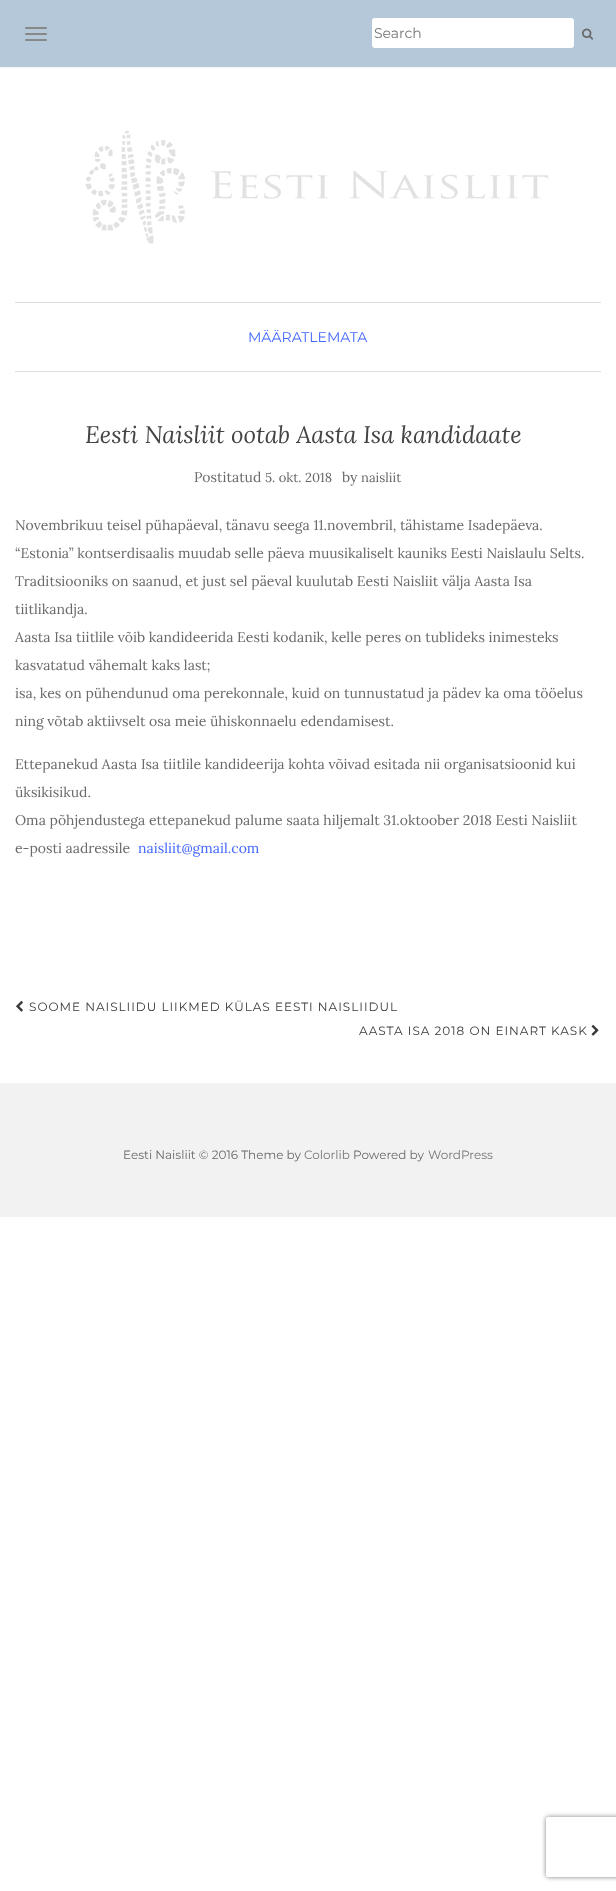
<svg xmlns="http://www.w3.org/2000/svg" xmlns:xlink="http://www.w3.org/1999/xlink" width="616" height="1891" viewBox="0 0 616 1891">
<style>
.cls-1{font:14px Montserrat;fill:#757575}
.cls-2{font:14px Montserrat;fill:#4368fe}
.cls-3{font:italic 24px Lora;fill:#444444}
.cls-4{font:14px Lora;fill:#696969}
.cls-5{font:13px Lora;fill:#696969}
.cls-6{font:14px Lora;fill:#4368fe}
.cls-7{font:12px Montserrat;letter-spacing:1px;fill:#393939}
.cls-8{font:12px Montserrat;fill:#696969}
.cls-9{font:12px Montserrat;fill:#757575}
</style>
<defs>
<clipPath id="clip1"><path d="M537 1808H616V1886H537ZM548 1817H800C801 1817 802 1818 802 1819V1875C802 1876 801 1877 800 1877H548C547 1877 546 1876 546 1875V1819C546 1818 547 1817 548 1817Z" clip-rule="evenodd"/></clipPath>
</defs>
<rect width="100%" height="100%" fill="#ffffff"/>
<rect fill="#e3e3e3" filter="blur(1px)" x="0" y="0" width="616" height="67"/>
<rect fill="#b4c8d9" x="0" y="0" width="616" height="67"/>
<rect fill="#888888" x="25" y="27" width="22" height="2" rx="1"/>
<rect fill="#888888" x="25" y="33" width="22" height="2" rx="1"/>
<rect fill="#888888" x="25" y="39" width="22" height="2" rx="1"/>
<rect fill="#ffffff" x="372" y="18" width="202" height="30" rx="3"/>
<image xlink:href="image0.png" x="582" y="28" width="12" height="12"/>
<image xlink:href="image1.png" x="85" y="130" width="464" height="114"/>
<rect fill="#dddddd" x="15" y="302" width="586" height="1"/>
<rect fill="#dedede" x="15" y="371" width="586" height="1"/>
<image xlink:href="image2.png" x="16" y="1000" width="7" height="12"/>
<image xlink:href="image3.png" x="591" y="1024" width="8" height="12"/>
<rect fill="#f2f2f2" x="0" y="1083" width="616" height="134"/>
<g clip-path="url(#clip1)">
<rect fill="#808080" filter="blur(2.5px)" x="546" y="1817" width="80" height="60" rx="2"/>
</g>
<text class="cls-1" x="374" y="38">Search</text>
<text class="cls-2" x="248" y="342">MÄÄRATLEMATA</text>
<text class="cls-3" x="85" y="443">Eesti Naisliit ootab Aasta Isa kandidaate</text>
<text class="cls-4" x="194" y="482">Postitatud</text>
<text class="cls-5" x="265" y="482">5. okt. 2018</text>
<text class="cls-4" x="342" y="482">by</text>
<text class="cls-5" x="361" y="482">naisliit</text>
<text class="cls-4" x="15" y="530">Novembrikuu teisel pühapäeval, tänavu seega 11.novembril, tähistame Isadepäeva.</text>
<text class="cls-4" x="15" y="558">“Estonia” kontserdisaalis muudab selle päeva muusikaliselt kauniks Eesti Naislaulu Selts.</text>
<text class="cls-4" x="15" y="586">Traditsiooniks on saanud, et just sel päeval kuulutab Eesti Naisliit välja Aasta Isa</text>
<text class="cls-4" x="15" y="614">tiitlikandja.</text>
<text class="cls-4" x="15" y="642">Aasta Isa tiitlile võib kandideerida Eesti kodanik, kelle peres on tublideks inimesteks</text>
<text class="cls-4" x="15" y="670">kasvatatud vähemalt kaks last;</text>
<text class="cls-4" x="15" y="698">isa, kes on pühendunud oma perekonnale, kuid on tunnustatud ja pädev ka oma tööelus</text>
<text class="cls-4" x="15" y="726">ning võtab aktiivselt osa meie ühiskonnaelu edendamisest.</text>
<text class="cls-4" x="15" y="769">Ettepanekud Aasta Isa tiitlile kandideerija kohta võivad esitada nii organisatsioonid kui</text>
<text class="cls-4" x="15" y="797">üksikisikud.</text>
<text class="cls-4" x="15" y="825">Oma põhjendustega ettepanekud palume saata hiljemalt 31.oktoober 2018 Eesti Naisliit</text>
<text class="cls-4" x="15" y="853">e-posti aadressile</text>
<text class="cls-6" x="138" y="853">naisliit@gmail.com</text>
<text class="cls-7" x="29" y="1011">SOOME NAISLIIDU LIIKMED KÜLAS EESTI NAISLIIDUL</text>
<text class="cls-7" x="359" y="1035">AASTA ISA 2018 ON EINART KASK</text>
<text class="cls-8" x="123" y="1159">Eesti Naisliit © 2016 Theme by</text>
<text class="cls-9" x="304" y="1159">Colorlib</text>
<text class="cls-8" x="353" y="1159">Powered by</text>
<text class="cls-9" x="428" y="1159">WordPress</text>
</svg>
